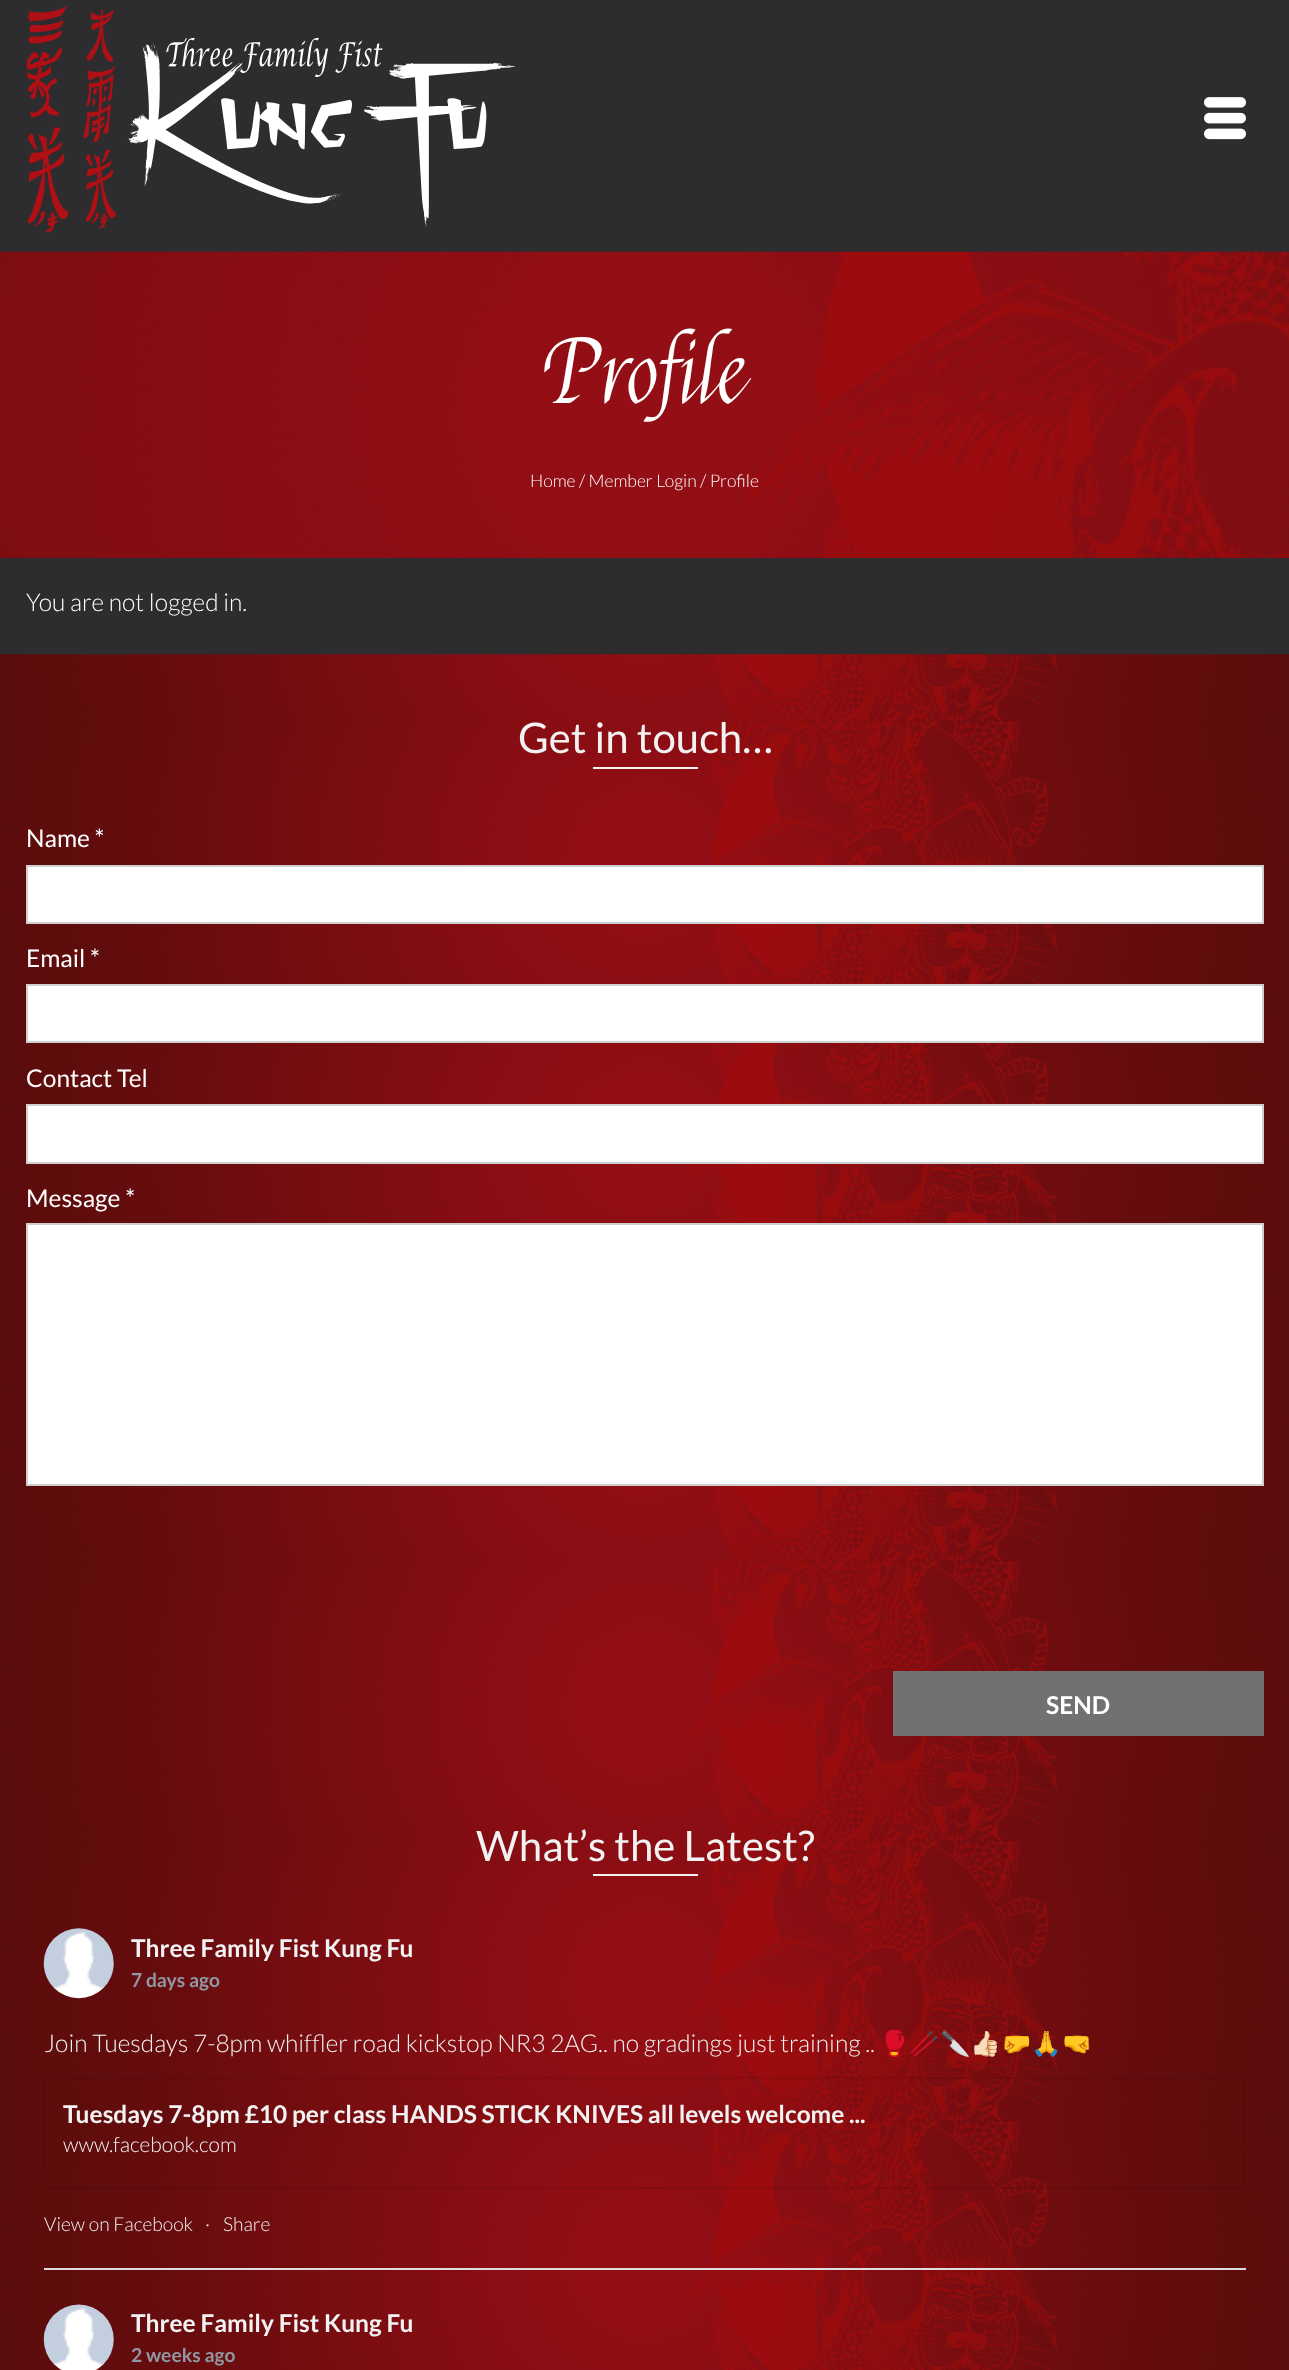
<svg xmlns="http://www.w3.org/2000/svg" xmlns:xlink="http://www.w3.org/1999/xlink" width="1289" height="2370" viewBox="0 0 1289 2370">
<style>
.cls-1{font:87.5px Felipa;fill:#ffffff}
.cls-2{font:300 17.5px Lato;fill:#ffffff}
.cls-3{font:300 24.5px Lato;fill:#ffffff}
.cls-4{font:42px Lato;fill:#f2f2f2}
.cls-5{font:24.5px Lato;fill:#ffffff}
.cls-6{font:bold 24.5px Lato;fill:#ffffff}
.cls-7{font:bold 24.5px Lato;fill:#f2f2f2}
.cls-8{font:bold 19.25px Lato;fill:#9197a3}
.cls-9{font:300 24.5px Lato;fill:#f2f2f2}
.cls-10{font:24.5px Noto Color Emoji;fill:#f2f2f2}
.cls-11{font:300 21px Lato;fill:#f2f2f2}
.cls-12{font:300 19.25px Lato;fill:#f2f2f2}
</style>
<rect width="100%" height="100%" fill="#2d2c2f"/>
<image xlink:href="image0.png" x="26" y="7" width="490" height="226"/>
<image xlink:href="image1.png" x="1204" y="97" width="42" height="43"/>
<image xlink:href="image2.png" x="0" y="251" width="1289" height="307"/>
<image xlink:href="image3.png" x="0" y="654" width="1289" height="1716"/>
<rect fill="#f2f2f2" x="593" y="767" width="105" height="2"/>
<rect fill="#ffffff" stroke="#cfcfcf" stroke-width="2" x="27" y="866" width="1236" height="57"/>
<rect fill="#ffffff" stroke="#cfcfcf" stroke-width="2" x="27" y="985" width="1236" height="57"/>
<rect fill="#ffffff" stroke="#cfcfcf" stroke-width="2" x="27" y="1105" width="1236" height="58"/>
<rect fill="#ffffff" stroke="#cfcfcf" stroke-width="2" x="27" y="1224" width="1236" height="261"/>
<rect fill="#707173" x="893" y="1671" width="371" height="65"/>
<rect fill="#f2f2f2" x="593" y="1874" width="105" height="2"/>
<rect fill="#dddddd" x="44" y="2268" width="1202" height="2"/>
<image xlink:href="image4.png" x="43" y="1928" width="71" height="71"/>
<rect fill="none" stroke="#000000" stroke-opacity="0.07" stroke-width="2" x="45" y="2078" width="1200" height="110"/>
<image xlink:href="image5.png" x="43" y="2304" width="71" height="66"/>
<text class="cls-1" x="545" y="403">Profile</text>
<text class="cls-2" x="530" y="487">Home / Member Login / Profile</text>
<text class="cls-3" x="26" y="611">You are not logged in.</text>
<text class="cls-4" x="518" y="753">Get in touch…</text>
<text class="cls-5" x="26" y="847">Name *</text>
<text class="cls-5" x="26" y="967">Email *</text>
<text class="cls-5" x="26" y="1087">Contact Tel</text>
<text class="cls-5" x="26" y="1207">Message *</text>
<text class="cls-6" x="1046" y="1714">SEND</text>
<text class="cls-4" x="476" y="1861">What’s the Latest?</text>
<text class="cls-7" x="131" y="1957">Three Family Fist Kung Fu</text>
<text class="cls-8" x="131" y="1987">7 days ago</text>
<text class="cls-9" x="44" y="2052">Join Tuesdays 7-8pm whiffler road kickstop NR3 2AG.. no gradings just training ..</text>
<text class="cls-10" x="879" y="2052">🥊🥢🔪👍🏻🤛🙏🤜</text>
<text class="cls-7" x="63" y="2123">Tuesdays 7-8pm £10 per class HANDS STICK KNIVES all levels welcome ...</text>
<text class="cls-11" x="63" y="2152">www.facebook.com</text>
<text class="cls-12" x="44" y="2231">View on Facebook</text>
<text class="cls-12" x="205" y="2231">·</text>
<text class="cls-12" x="223" y="2231">Share</text>
<text class="cls-7" x="131" y="2332">Three Family Fist Kung Fu</text>
<text class="cls-8" x="131" y="2362">2 weeks ago</text>
</svg>
